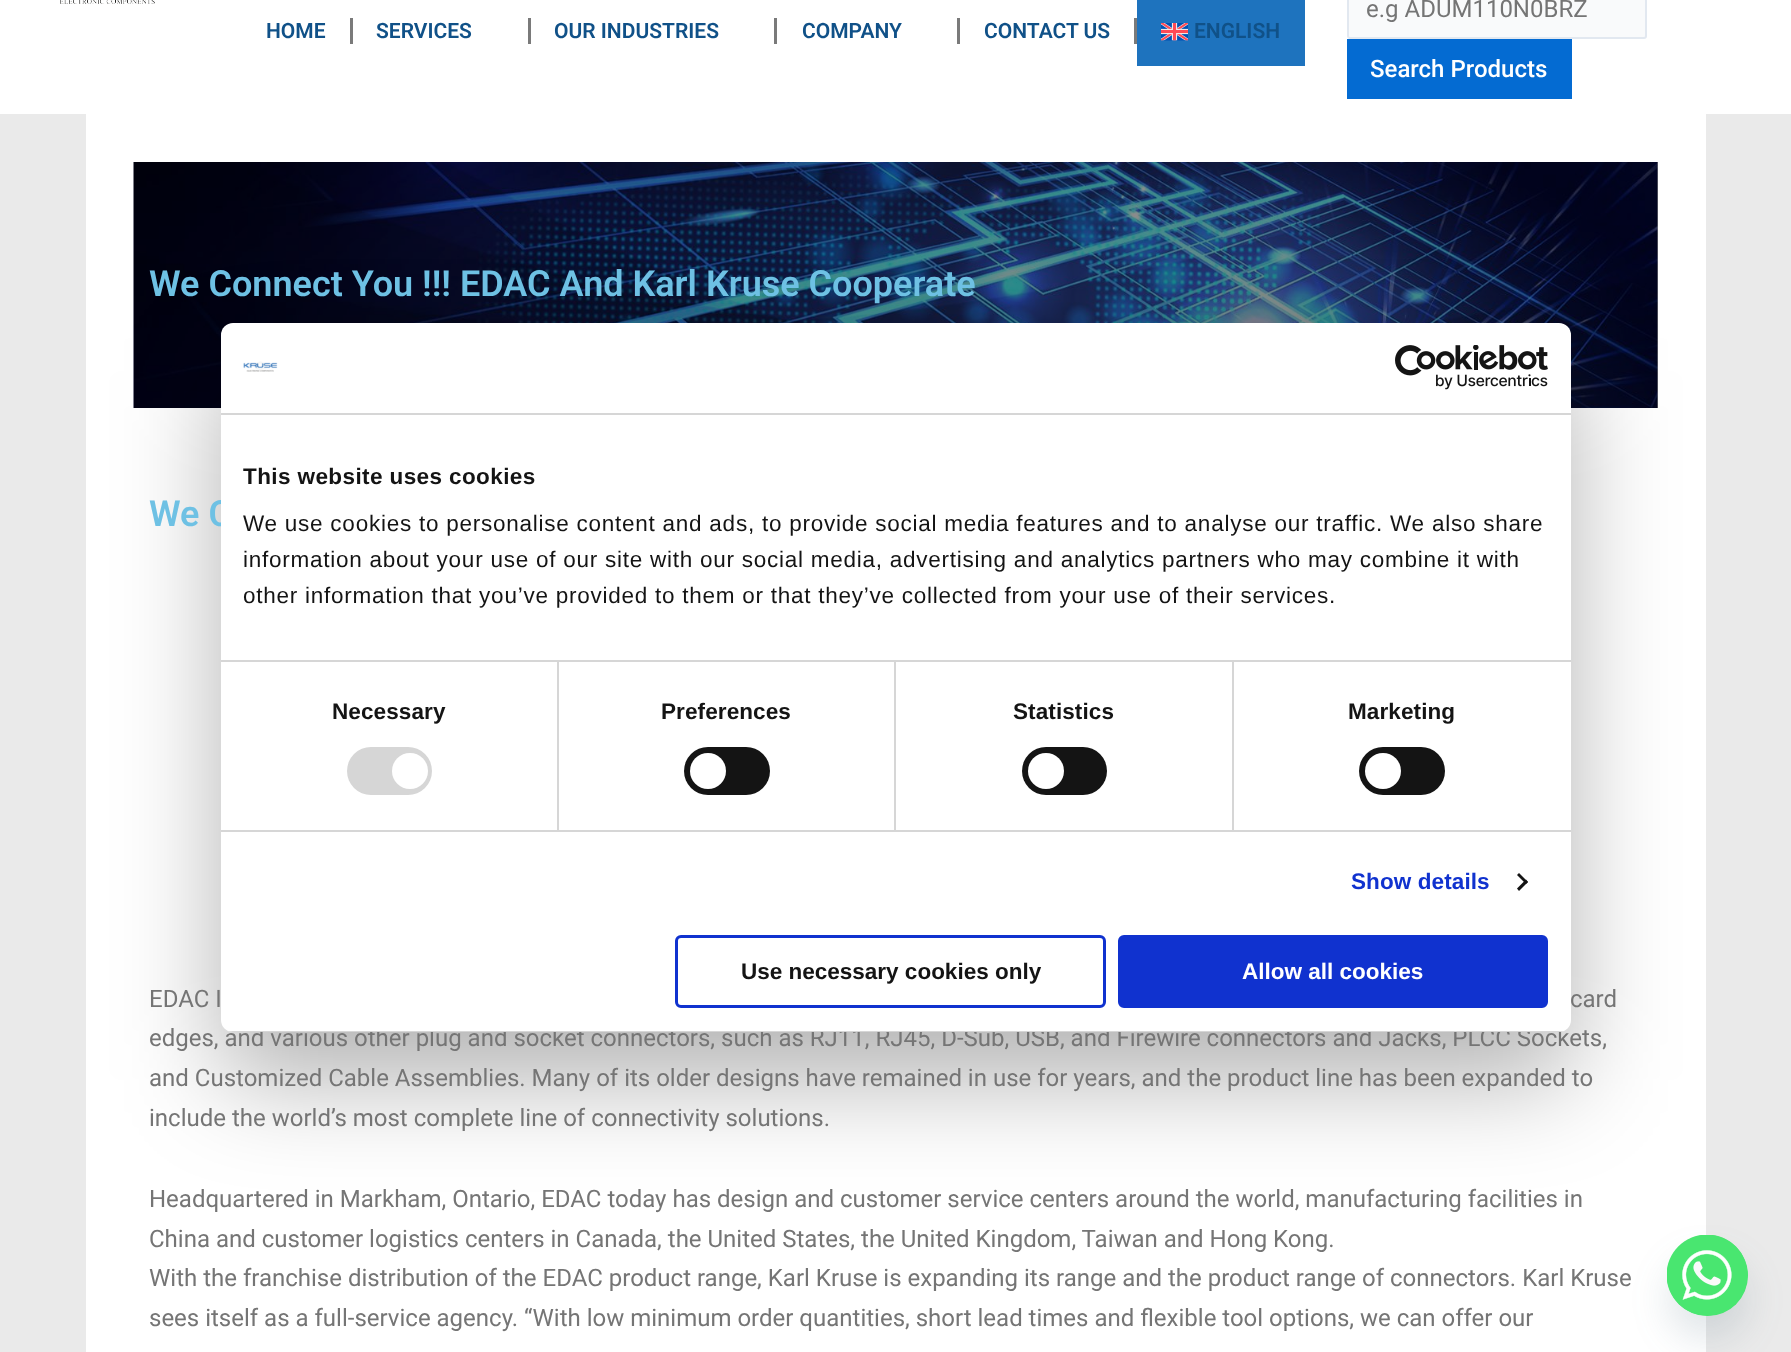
<svg xmlns="http://www.w3.org/2000/svg" xmlns:xlink="http://www.w3.org/1999/xlink" width="1791" height="1352" viewBox="0 0 1791 1352">
<style>
.cls-1{font:600 21px Roboto;fill:#105188}
.cls-2{font:24px Roboto;fill:#757575}
.cls-3{font:500 24px Roboto;fill:#ffffff}
.cls-4{font:600 36px Roboto;fill:#6ec1e4}
.cls-5{font:bold 22.5px Liberation Sans;letter-spacing:0.4px;fill:#141414}
.cls-6{font:22.5px Liberation Sans;letter-spacing:0.75px;fill:#141414}
.cls-7{font:bold 22.5px Liberation Sans;letter-spacing:0.1px;fill:#141414}
.cls-8{font:bold 22.5px Liberation Sans;letter-spacing:0.1px;fill:#1032cf}
.cls-9{font:bold 22.5px Liberation Sans;fill:#141414}
.cls-10{font:bold 22.5px Liberation Sans;fill:#ffffff}
</style>
<defs>
<clipPath id="clip1"><rect x="1367" y="0" width="261" height="24"/></clipPath>
<clipPath id="clip2"><rect x="221" y="323" width="1350" height="709" rx="12"/></clipPath>
</defs>
<rect width="100%" height="100%" fill="#ffffff"/>
<image xlink:href="image0.png" x="60" y="0" width="95" height="4"/>
<rect fill="#7a7a7a" x="350" y="18" width="3" height="26"/>
<rect fill="#7a7a7a" x="528" y="18" width="3" height="26"/>
<rect fill="#7a7a7a" x="774" y="18" width="3" height="26"/>
<rect fill="#7a7a7a" x="957" y="18" width="3" height="26"/>
<rect fill="#7a7a7a" x="1134" y="18" width="3" height="26"/>
<rect fill="#1e73be" x="1137" y="0" width="168" height="66"/>
<image xlink:href="image1.png" x="1161" y="23" width="27" height="18"/>
<rect fill="#f9fafb" stroke="#e2e8f0" stroke-width="2" x="1348" y="-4" width="298" height="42" rx="2"/>
<rect fill="#046bd2" x="1347" y="39" width="225" height="60"/>
<rect fill="#eaeaea" x="0" y="114" width="1791" height="1238"/>
<rect fill="#ffffff" x="86" y="114" width="1620" height="1238"/>
<rect fill="#8c8c8c" x="1657" y="162" width="1" height="246"/>
<image xlink:href="image2.png" x="133" y="162" width="1525" height="246"/>
<rect fill="#000000" fill-opacity="0.3" filter="blur(51px)" x="221" y="371" width="1350" height="709" rx="12"/>
<rect fill="#49687e" fill-opacity="0.16" filter="blur(18px)" x="1667" y="1259" width="81" height="81" rx="40.5"/>
<circle fill="#49e670" cx="1707.5" cy="1275.5" r="40.5"/>
<image xlink:href="image5.png" x="1667" y="1235" width="81" height="81"/>
<text class="cls-1" x="266" y="38">HOME</text>
<text class="cls-1" x="376" y="38">SERVICES</text>
<text class="cls-1" x="554" y="38">OUR INDUSTRIES</text>
<text class="cls-1" x="802" y="38">COMPANY</text>
<text class="cls-1" x="984" y="38">CONTACT US</text>
<text class="cls-1" x="1194" y="38">ENGLISH</text>
<g clip-path="url(#clip1)">
<text class="cls-2" x="1366" y="17">e.g ADUM110N0BRZ</text>
</g>
<text class="cls-3" x="1370" y="77">Search Products</text>
<text class="cls-4" x="149" y="296">We Connect You !!! EDAC And Karl Kruse Cooperate</text>
<text class="cls-4" x="149" y="526">We C</text>
<text class="cls-2" x="149" y="1007">EDAC I</text>
<text class="cls-2" x="1570" y="1007">card</text>
<text class="cls-2"><tspan x="149" y="1046">edges, and various other plug and socket connectors, such as RJ11, RJ45, D-Sub, USB, and Firewire connectors and Jacks, PLCC Sockets,</tspan><tspan x="149" y="1086">and Customized Cable Assemblies. Many of its older designs have remained in use for years, and the product line has been expanded to</tspan><tspan x="149" y="1126">include the world’s most complete line of connectivity solutions.</tspan></text>
<text class="cls-2"><tspan x="149" y="1207">Headquartered in Markham, Ontario, EDAC today has design and customer service centers around the world, manufacturing facilities in</tspan><tspan x="149" y="1247">China and customer logistics centers in Canada, the United States, the United Kingdom, Taiwan and Hong Kong.</tspan><tspan x="149" y="1286">With the franchise distribution of the EDAC product range, Karl Kruse is expanding its range and the product range of connectors. Karl Kruse</tspan><tspan x="149" y="1326">sees itself as a full-service agency. “With low minimum order quantities, short lead times and flexible tool options, we can offer our</tspan></text>
<rect fill="#ffffff" x="221" y="323" width="1350" height="709" rx="12"/>
<rect fill="#d6d6d6" x="221" y="413" width="1350" height="2"/>
<image xlink:href="image3.png" x="243" y="361" width="35" height="11"/>
<image xlink:href="image4.png" x="1395" y="345" width="153" height="45"/>
<rect fill="#d6d6d6" x="221" y="660" width="1350" height="2"/>
<text class="cls-5" x="243" y="484">This website uses cookies</text>
<text class="cls-6"><tspan x="243" y="531">We use cookies to personalise content and ads, to provide social media features and to analyse our traffic. We also share</tspan><tspan x="243" y="567">information about your use of our site with our social media, advertising and analytics partners who may combine it with</tspan><tspan x="243" y="603">other information that you’ve provided to them or that they’ve collected from your use of their services.</tspan></text>
<rect fill="#d6d6d6" x="221" y="830" width="1350" height="2"/>
<rect fill="#d6d6d6" x="557" y="662" width="2" height="168"/>
<text class="cls-7" x="332" y="719">Necessary</text>
<rect fill="#d6d6d6" x="347" y="747" width="85" height="48" rx="24"/>
<circle fill="#ffffff" cx="410" cy="771" r="18"/>
<rect fill="#d6d6d6" x="894" y="662" width="2" height="168"/>
<text class="cls-7" x="661" y="719">Preferences</text>
<rect fill="#141414" x="684" y="747" width="86" height="48" rx="24"/>
<circle fill="#ffffff" cx="708" cy="771" r="18"/>
<rect fill="#d6d6d6" x="1232" y="662" width="2" height="168"/>
<text class="cls-7" x="1013" y="719">Statistics</text>
<rect fill="#141414" x="1022" y="747" width="85" height="48" rx="24"/>
<circle fill="#ffffff" cx="1046" cy="771" r="18"/>
<text class="cls-7" x="1348" y="719">Marketing</text>
<rect fill="#141414" x="1359" y="747" width="86" height="48" rx="24"/>
<circle fill="#ffffff" cx="1383" cy="771" r="18"/>
<text class="cls-8" x="1351" y="889">Show details</text>
<path fill="#141414" d="M1519 873L1528 882L1526 884L1517 875Z"/>
<path fill="#141414" d="M1526 879.5L1528 882L1519 891L1517 888.5Z"/>
<g clip-path="url(#clip2)">
<rect fill="#d6d6d6" x="221" y="1031" width="1350" height="1"/>
</g>
<rect fill="none" stroke="#1032cf" stroke-width="3" x="676.5" y="936.5" width="428" height="70" rx="4.5"/>
<text class="cls-9" x="741" y="979">Use necessary cookies only</text>
<rect fill="#1032cf" stroke="#1032cf" stroke-width="3" x="1119.5" y="936.5" width="427" height="70" rx="4.5"/>
<text class="cls-10" x="1242" y="979">Allow all cookies</text>
</svg>
